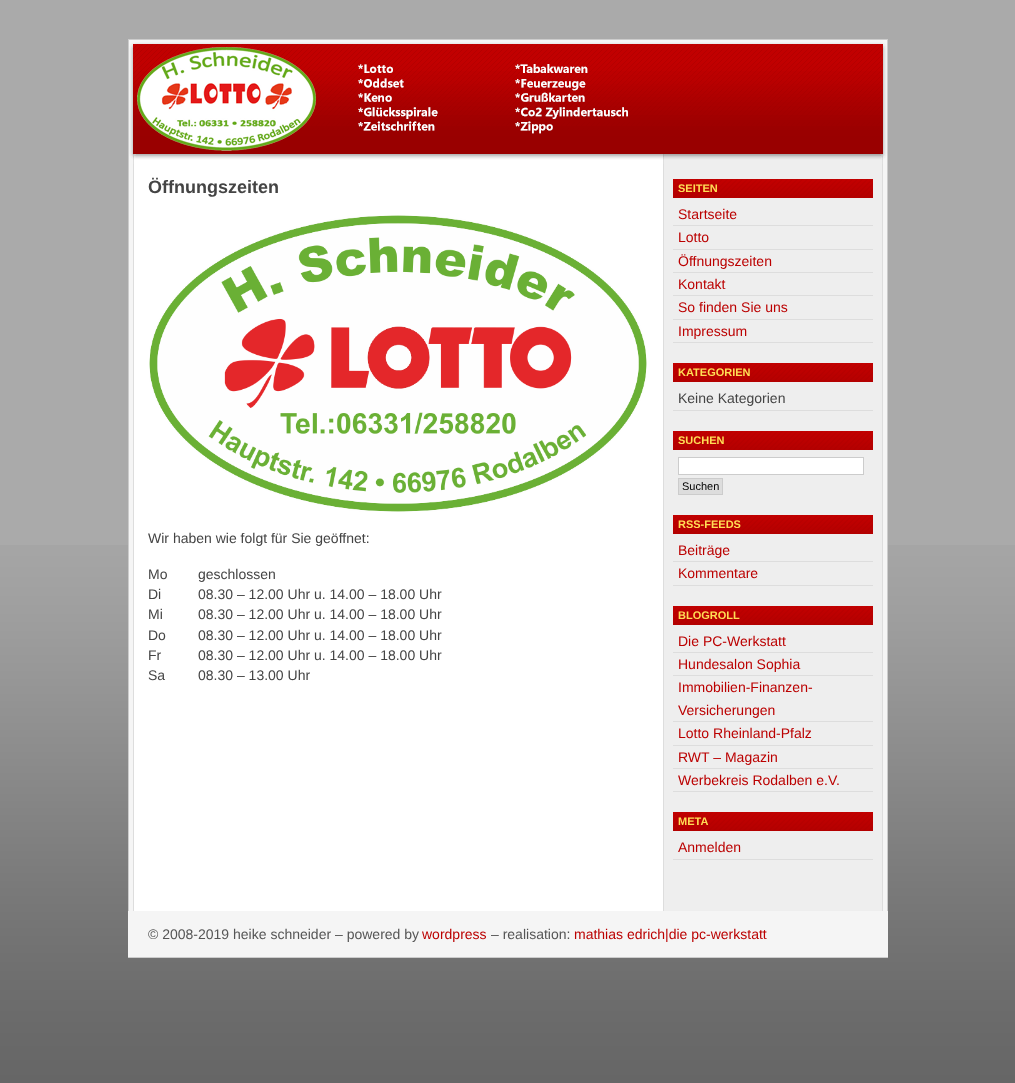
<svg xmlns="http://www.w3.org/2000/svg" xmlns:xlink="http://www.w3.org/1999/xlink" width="1015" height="1083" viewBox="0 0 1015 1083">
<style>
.cls-1{font:bold 18px Liberation Sans;fill:#444444}
.cls-2{font:14px Liberation Sans;fill:#444444}
.cls-3{font:bold 11px Liberation Sans;fill:#ffdd55}
.cls-4{font:14px Liberation Sans;fill:#bb0000}
.cls-5{font:11px Liberation Sans;fill:#000000}
.cls-6{font:14px Liberation Sans;fill:#555555}
</style>
<rect width="100%" height="100%" fill="#aaaaaa"/>
<image xlink:href="image0.png" x="0" y="545" width="1015" height="538"/>
<image xlink:href="image1.png" x="128" y="39" width="760" height="125"/>
<image xlink:href="image2.png" x="128" y="164" width="760" height="747"/>
<image xlink:href="image3.png" x="149" y="215" width="498" height="297"/>
<image xlink:href="image4.png" x="673" y="179" width="200" height="19"/>
<rect fill="#dddddd" x="673" y="225" width="200" height="1"/>
<rect fill="#dddddd" x="673" y="249" width="200" height="1"/>
<rect fill="#dddddd" x="673" y="272" width="200" height="1"/>
<rect fill="#dddddd" x="673" y="295" width="200" height="1"/>
<rect fill="#dddddd" x="673" y="319" width="200" height="1"/>
<rect fill="#dddddd" x="673" y="342" width="200" height="1"/>
<image xlink:href="image4.png" x="673" y="363" width="200" height="19"/>
<rect fill="#dddddd" x="673" y="410" width="200" height="1"/>
<image xlink:href="image4.png" x="673" y="431" width="200" height="19"/>
<rect fill="#ffffff" stroke="#cccccc" x="678.5" y="457.5" width="185" height="17"/>
<rect fill="#dddddd" stroke="#cccccc" x="678.5" y="478.5" width="44" height="16"/>
<image xlink:href="image4.png" x="673" y="515" width="200" height="19"/>
<rect fill="#dddddd" x="673" y="561" width="200" height="1"/>
<rect fill="#dddddd" x="673" y="585" width="200" height="1"/>
<image xlink:href="image4.png" x="673" y="606" width="200" height="19"/>
<rect fill="#dddddd" x="673" y="652" width="200" height="1"/>
<rect fill="#dddddd" x="673" y="675" width="200" height="1"/>
<rect fill="#dddddd" x="673" y="721" width="200" height="1"/>
<rect fill="#dddddd" x="673" y="745" width="200" height="1"/>
<rect fill="#dddddd" x="673" y="768" width="200" height="1"/>
<rect fill="#dddddd" x="673" y="791" width="200" height="1"/>
<image xlink:href="image4.png" x="673" y="812" width="200" height="19"/>
<rect fill="#dddddd" x="673" y="859" width="200" height="1"/>
<rect fill="#f5f5f5" x="128" y="911" width="760" height="46"/>
<rect fill="#cccccc" x="128" y="957" width="760" height="1"/>
<text class="cls-1" x="148" y="193">Öffnungszeiten</text>
<text class="cls-2" x="148" y="543">Wir haben wie folgt für Sie geöffnet:</text>
<text class="cls-2" x="148" y="579">Mo</text>
<text class="cls-2" x="198" y="579">geschlossen</text>
<text class="cls-2" x="148" y="599">Di</text>
<text class="cls-2" x="198" y="599">08.30 – 12.00 Uhr u. 14.00 – 18.00 Uhr</text>
<text class="cls-2" x="148" y="619">Mi</text>
<text class="cls-2" x="198" y="619">08.30 – 12.00 Uhr u. 14.00 – 18.00 Uhr</text>
<text class="cls-2" x="148" y="640">Do</text>
<text class="cls-2" x="198" y="640">08.30 – 12.00 Uhr u. 14.00 – 18.00 Uhr</text>
<text class="cls-2" x="148" y="660">Fr</text>
<text class="cls-2" x="198" y="660">08.30 – 12.00 Uhr u. 14.00 – 18.00 Uhr</text>
<text class="cls-2" x="148" y="680">Sa</text>
<text class="cls-2" x="198" y="680">08.30 – 13.00 Uhr</text>
<text class="cls-3" x="678" y="192">SEITEN</text>
<text class="cls-4"><tspan x="678" y="219">Startseite</tspan><tspan x="678" y="242">Lotto</tspan><tspan x="678" y="266">Öffnungszeiten</tspan><tspan x="678" y="289">Kontakt</tspan><tspan x="678" y="312">So finden Sie uns</tspan><tspan x="678" y="336">Impressum</tspan></text>
<text class="cls-3" x="678" y="376">KATEGORIEN</text>
<text class="cls-2" x="678" y="403">Keine Kategorien</text>
<text class="cls-3" x="678" y="444">SUCHEN</text>
<text class="cls-5" x="682" y="490">Suchen</text>
<text class="cls-3" x="678" y="528">RSS-FEEDS</text>
<text class="cls-4"><tspan x="678" y="555">Beiträge</tspan><tspan x="678" y="578">Kommentare</tspan></text>
<text class="cls-3" x="678" y="619">BLOGROLL</text>
<text class="cls-4"><tspan x="678" y="646">Die PC-Werkstatt</tspan><tspan x="678" y="669">Hundesalon Sophia</tspan><tspan x="678" y="692">Immobilien-Finanzen-</tspan><tspan x="678" y="715">Versicherungen</tspan><tspan x="678" y="738">Lotto Rheinland-Pfalz</tspan><tspan x="678" y="762">RWT – Magazin</tspan><tspan x="678" y="785">Werbekreis Rodalben e.V.</tspan></text>
<text class="cls-3" x="678" y="825">META</text>
<text class="cls-4" x="678" y="852">Anmelden</text>
<text class="cls-6" x="148" y="939">© 2008-2019 heike schneider – powered by</text>
<text class="cls-4" x="422" y="939">wordpress</text>
<text class="cls-6" x="491" y="939">– realisation:</text>
<text class="cls-4" x="574" y="939">mathias edrich|die pc-werkstatt</text>
</svg>
